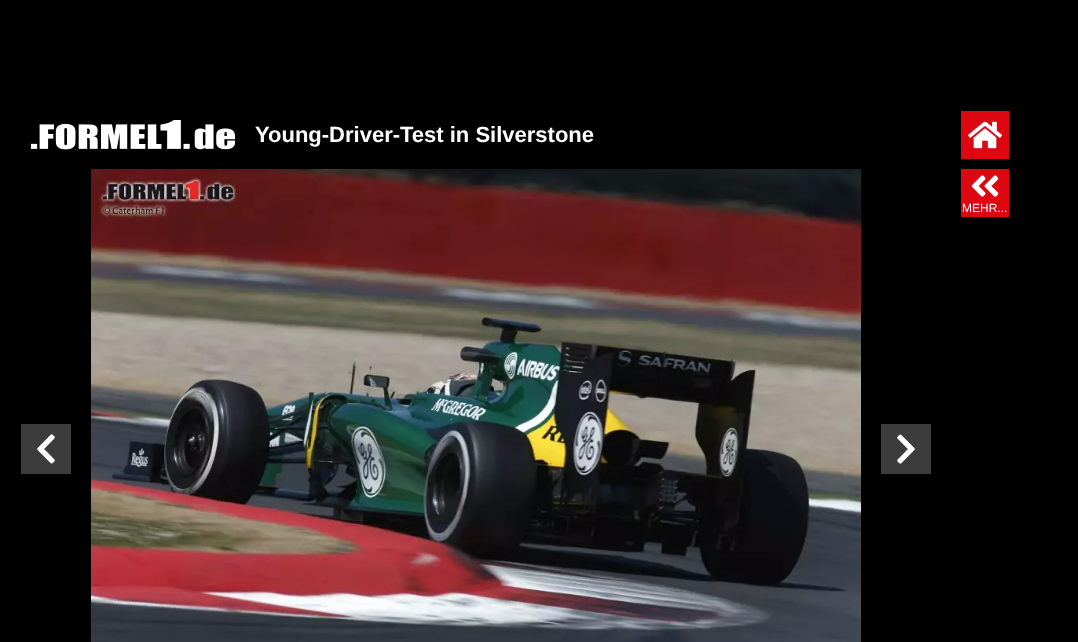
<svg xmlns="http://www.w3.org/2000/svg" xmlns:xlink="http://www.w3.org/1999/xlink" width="1078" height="642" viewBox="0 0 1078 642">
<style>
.cls-1{font:bold 22px Liberation Sans;fill:#ffffff}
.cls-2{font:12px Liberation Sans;fill:#ffffff}
</style>
<rect width="100%" height="100%" fill="#000000"/>
<image xlink:href="image0.png" x="31" y="120" width="204" height="30"/>
<rect fill="#dc0711" x="961" y="111" width="48" height="48"/>
<image xlink:href="image1.png" x="968" y="121" width="34" height="28"/>
<rect fill="#dc0711" x="961" y="169" width="48" height="48"/>
<image xlink:href="image2.png" x="971" y="175" width="28" height="22"/>
<image xlink:href="image3.png" x="91" y="169" width="770" height="473"/>
<rect fill="#3c3c3c" x="21" y="424" width="50" height="50"/>
<image xlink:href="image4.png" x="37" y="434" width="18" height="30"/>
<rect fill="#3c3c3c" x="881" y="424" width="50" height="50"/>
<image xlink:href="image5.png" x="897" y="434" width="18" height="30"/>
<text class="cls-1" x="255" y="142">Young-Driver-Test in Silverstone</text>
<text class="cls-2" x="962" y="212">MEHR...</text>
</svg>
